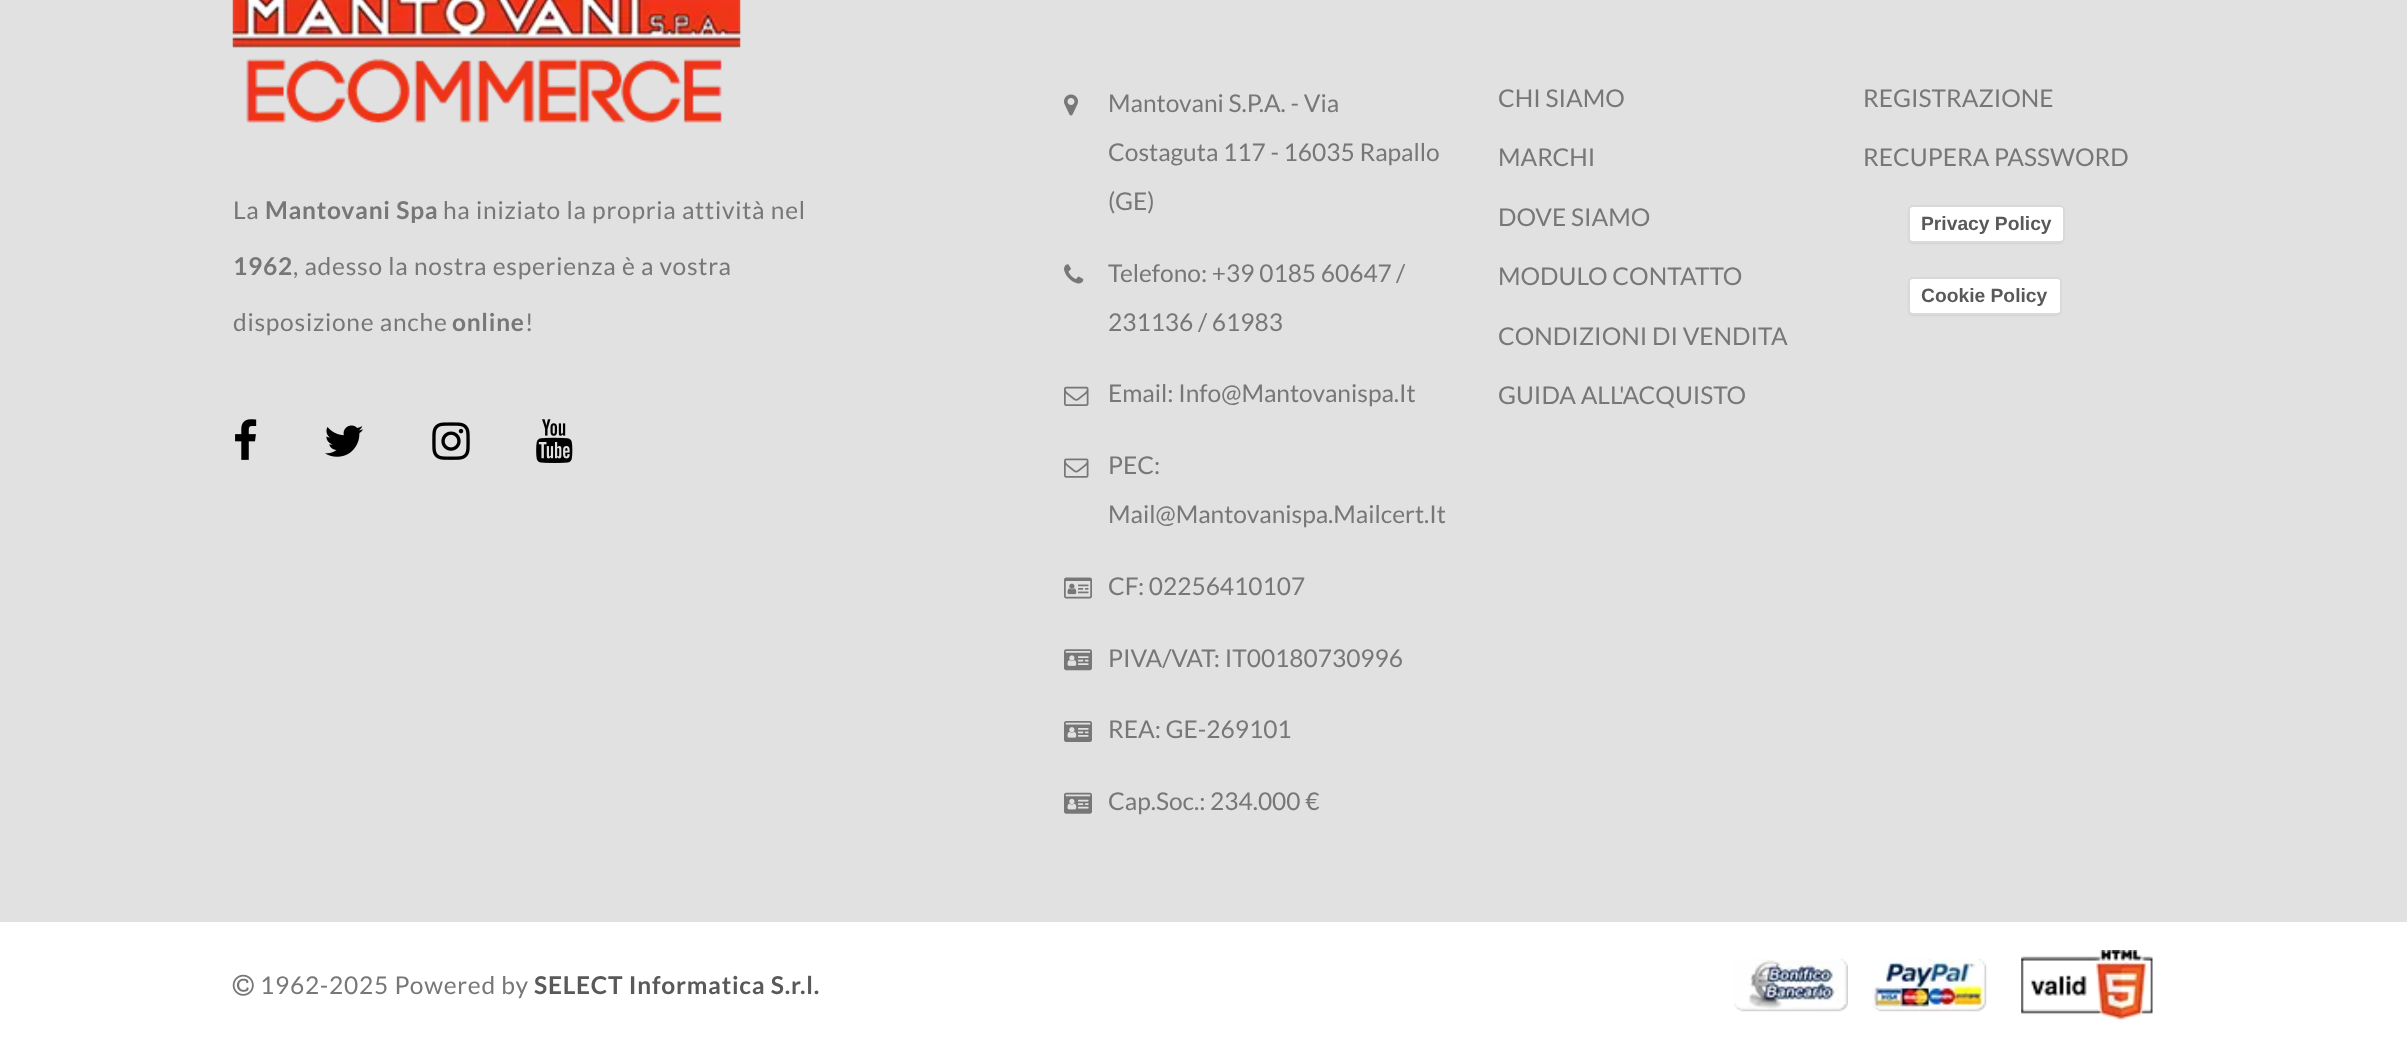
<svg xmlns="http://www.w3.org/2000/svg" xmlns:xlink="http://www.w3.org/1999/xlink" width="2407" height="1047" viewBox="0 0 2407 1047">
<style>
.cls-1{font:24.5px Lato;letter-spacing:0.75px;fill:#777777}
.cls-2{font:bold 24.5px Lato;letter-spacing:0.75px;fill:#777777}
.cls-3{font:24.5px Lato;fill:#777777}
.cls-4{font:bold 19.25px Liberation Sans;fill:#595959}
.cls-5{font:bold 24.5px Lato;letter-spacing:0.75px;fill:#595959}
</style>
<rect width="100%" height="100%" fill="#ffffff"/>
<rect fill="#e1e1e1" x="0" y="0" width="2407" height="922"/>
<image xlink:href="image0.png" x="232" y="0" width="509" height="123"/>
<image xlink:href="image1.png" x="235" y="419" width="22" height="41"/>
<image xlink:href="image2.png" x="325" y="425" width="39" height="32"/>
<image xlink:href="image3.png" x="432" y="422" width="38" height="38"/>
<image xlink:href="image4.png" x="536" y="419" width="37" height="44"/>
<image xlink:href="image5.png" x="1064" y="94" width="14" height="22"/>
<image xlink:href="image6.png" x="1064" y="264" width="20" height="20"/>
<image xlink:href="image7.png" x="1064" y="386" width="25" height="20"/>
<image xlink:href="image8.png" x="1064" y="458" width="25" height="20"/>
<image xlink:href="image9.png" x="1064" y="577" width="28" height="22"/>
<image xlink:href="image10.png" x="1064" y="649" width="28" height="22"/>
<image xlink:href="image11.png" x="1064" y="721" width="28" height="21"/>
<image xlink:href="image12.png" x="1064" y="792" width="28" height="22"/>
<rect fill="#000000" fill-opacity="0.15" filter="blur(1px)" x="1909" y="208" width="154" height="35" rx="4"/>
<rect fill="#ffffff" x="1908" y="205" width="157" height="38" rx="5"/>
<rect fill="none" stroke="#000000" stroke-opacity="0.15" stroke-width="2" x="1909" y="206" width="155" height="36" rx="4"/>
<rect fill="#000000" fill-opacity="0.15" filter="blur(1px)" x="1909" y="280" width="151" height="35" rx="4"/>
<rect fill="#ffffff" x="1908" y="277" width="154" height="38" rx="5"/>
<rect fill="none" stroke="#000000" stroke-opacity="0.15" stroke-width="2" x="1909" y="278" width="152" height="36" rx="4"/>
<image xlink:href="image13.png" x="232" y="974" width="22" height="22"/>
<image xlink:href="image14.png" x="1734" y="958" width="114" height="54"/>
<image xlink:href="image15.png" x="1872" y="958" width="115" height="54"/>
<image xlink:href="image16.png" x="2021" y="950" width="132" height="70"/>
<text class="cls-1" x="233" y="219">La</text>
<text class="cls-2" x="265" y="219">Mantovani Spa</text>
<text class="cls-1" x="443" y="219">ha iniziato la propria attività nel</text>
<text class="cls-2" x="233" y="275">1962</text>
<text class="cls-1" x="293" y="275">, adesso la nostra esperienza è a vostra</text>
<text class="cls-1" x="233" y="331">disposizione anche</text>
<text class="cls-2" x="452" y="331">online</text>
<text class="cls-1" x="525" y="331">!</text>
<text class="cls-3" x="1108" y="112">Mantovani S.P.A. - Via</text>
<text class="cls-3" x="1108" y="161">Costaguta 117 - 16035 Rapallo</text>
<text class="cls-3" x="1108" y="210">(</text>
<text class="cls-3" x="1115" y="210">GE)</text>
<text class="cls-3" x="1108" y="282">Telefono: +39 0185 60647</text>
<text class="cls-3" x="1396" y="282">/</text>
<text class="cls-3" x="1108" y="331">231136</text>
<text class="cls-3" x="1198" y="331">/ 61983</text>
<text class="cls-3" x="1108" y="402">Email: Info@Mantovanispa.It</text>
<text class="cls-3" x="1108" y="474">PEC:</text>
<text class="cls-3" x="1108" y="523">Mail@Mantovanispa.Mailcert.It</text>
<text class="cls-3" x="1108" y="595">CF: 02256410107</text>
<text class="cls-3" x="1108" y="667">PIVA/VAT: IT00180730996</text>
<text class="cls-3" x="1108" y="738">REA: GE-269101</text>
<text class="cls-3" x="1108" y="810">Cap.Soc.: 234.000 €</text>
<text class="cls-3" x="1498" y="107">CHI SIAMO</text>
<text class="cls-3" x="1498" y="166">MARCHI</text>
<text class="cls-3" x="1498" y="226">DOVE SIAMO</text>
<text class="cls-3" x="1498" y="285">MODULO CONTATTO</text>
<text class="cls-3" x="1498" y="345">CONDIZIONI DI VENDITA</text>
<text class="cls-3" x="1498" y="404">GUIDA ALL'ACQUISTO</text>
<text class="cls-3" x="1863" y="107">REGISTRAZIONE</text>
<text class="cls-3" x="1863" y="166">RECUPERA PASSWORD</text>
<text class="cls-4" x="1921" y="230">Privacy Policy</text>
<text class="cls-4" x="1921" y="302">Cookie Policy</text>
<text class="cls-1" x="260" y="994">1962-2025 Powered by</text>
<text class="cls-5" x="534" y="994">SELECT Informatica S.r.l.</text>
</svg>
